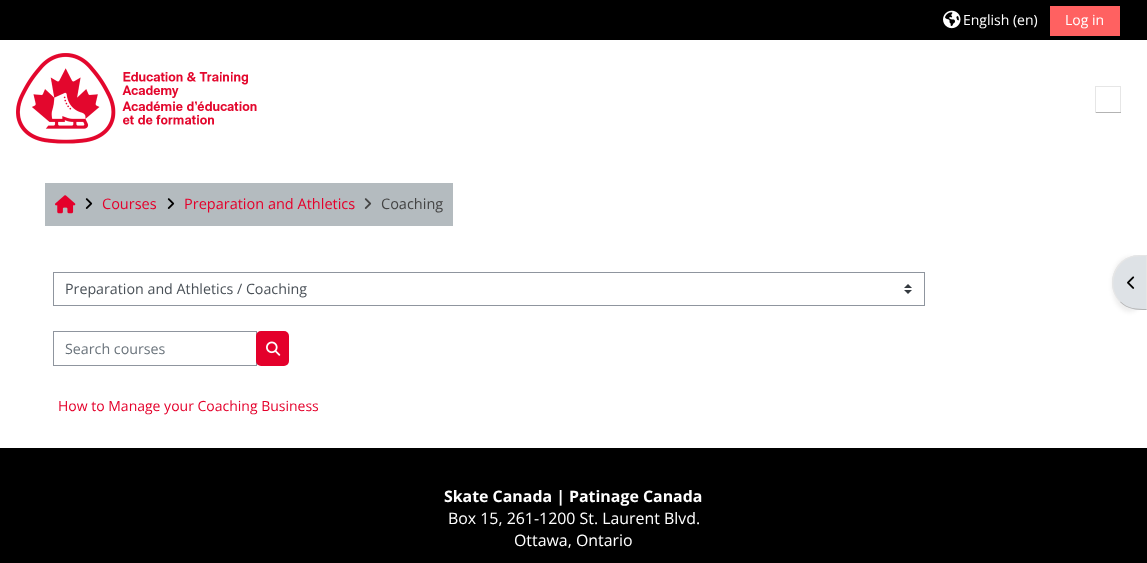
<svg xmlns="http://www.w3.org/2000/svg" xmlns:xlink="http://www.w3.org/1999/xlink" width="1147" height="563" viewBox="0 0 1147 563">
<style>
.cls-1{font:14px Open Sans;fill:#ffffff}
.cls-2{font:14.5px Open Sans;fill:#e4002b}
.cls-3{font:14.5px Open Sans;fill:#444444}
.cls-4{font:14.25px Open Sans;fill:#495057}
.cls-5{font:14.25px Open Sans;fill:#6a737b}
.cls-6{font:14px Open Sans;fill:#e4002b}
.cls-7{font:bold 15.9px Open Sans;fill:#ffffff}
.cls-8{font:15.9px Open Sans;fill:#ffffff}
</style>
<rect width="100%" height="100%" fill="#ffffff"/>
<rect fill="#000000" x="0" y="0" width="1147" height="40"/>
<image xlink:href="image0.png" x="943" y="10" width="18" height="19"/>
<rect fill="#ff6161" x="1050" y="6" width="70" height="30"/>
<image xlink:href="image1.png" x="16" y="53" width="241" height="91"/>
<rect fill="#e6e6e6" x="1095" y="86" width="26" height="1"/>
<rect fill="#e6e6e6" x="1120" y="86" width="1" height="27"/>
<rect fill="#b3b3b3" x="1095" y="112" width="26" height="1"/>
<rect fill="#e6e6e6" x="1095" y="86" width="1" height="27"/>
<rect fill="#b4bbbf" x="45" y="183" width="408" height="43"/>
<image xlink:href="image2.png" x="55" y="195" width="21" height="19"/>
<image xlink:href="image3.png" x="85" y="198" width="8" height="11"/>
<image xlink:href="image3.png" x="167" y="198" width="8" height="11"/>
<image xlink:href="image4.png" x="364" y="198" width="8" height="11"/>
<image xlink:href="image5.png" x="904" y="284" width="8" height="10"/>
<rect fill="none" stroke="#8f959e" x="53.5" y="272.5" width="871" height="33"/>
<rect fill="none" stroke="#8f959e" x="53.5" y="331.5" width="203" height="34"/>
<rect fill="#e4002b" x="256" y="331" width="33" height="35" rx="5"/>
<image xlink:href="image6.png" x="266" y="341" width="15" height="15"/>
<rect fill="#000000" fill-opacity="0.07" filter="blur(2px)" x="1112" y="257" width="35" height="55" rx="28"/>
<path fill="#dee2e6" d="M1139.5 255H1147V310H1139.5C1124.5 310 1112 297.5 1112 282.5C1112 267.5 1124.5 255 1139.5 255Z"/>
<path fill="#e6e6e6" d="M1140 255C1131.5 255 1125 258 1120 263L1121 264C1128 256 1136.5 256 1146 256L1147 255Z"/>
<path fill="#e6e6e6" d="M1147 255L1146 256V309L1147 310Z"/>
<path fill="#b3b3b3" d="M1147 310L1146 309C1136.5 309 1127.5 308.5 1120.5 301.5L1120 302C1127.5 309.5 1136.5 310 1147 310Z"/>
<path fill="#e6e6e6" d="M1120 263C1110 273.5 1109 291 1120 302L1120.5 301.5C1110.5 291 1111.5 274 1121 264Z"/>
<image xlink:href="image7.png" x="1127" y="276" width="8" height="13"/>
<rect fill="#000000" x="0" y="448" width="1147" height="115"/>
<text class="cls-1" x="963" y="25">English (en)</text>
<text class="cls-1" x="1065" y="25">Log in</text>
<text class="cls-2" x="102" y="209">Courses</text>
<text class="cls-2" x="184" y="209">Preparation and Athletics</text>
<text class="cls-3" x="381" y="209">Coaching</text>
<text class="cls-4" x="65" y="294">Preparation and Athletics / Coaching</text>
<text class="cls-5" x="65" y="354">Search courses</text>
<text class="cls-6" x="58" y="411">How to Manage your Coaching Business</text>
<text class="cls-7" x="444" y="502">Skate Canada | Patinage Canada</text>
<text class="cls-8" x="448" y="524">Box 15, 261-1200 St. Laurent Blvd.</text>
<text class="cls-8" x="514" y="546">Ottawa, Ontario</text>
</svg>
